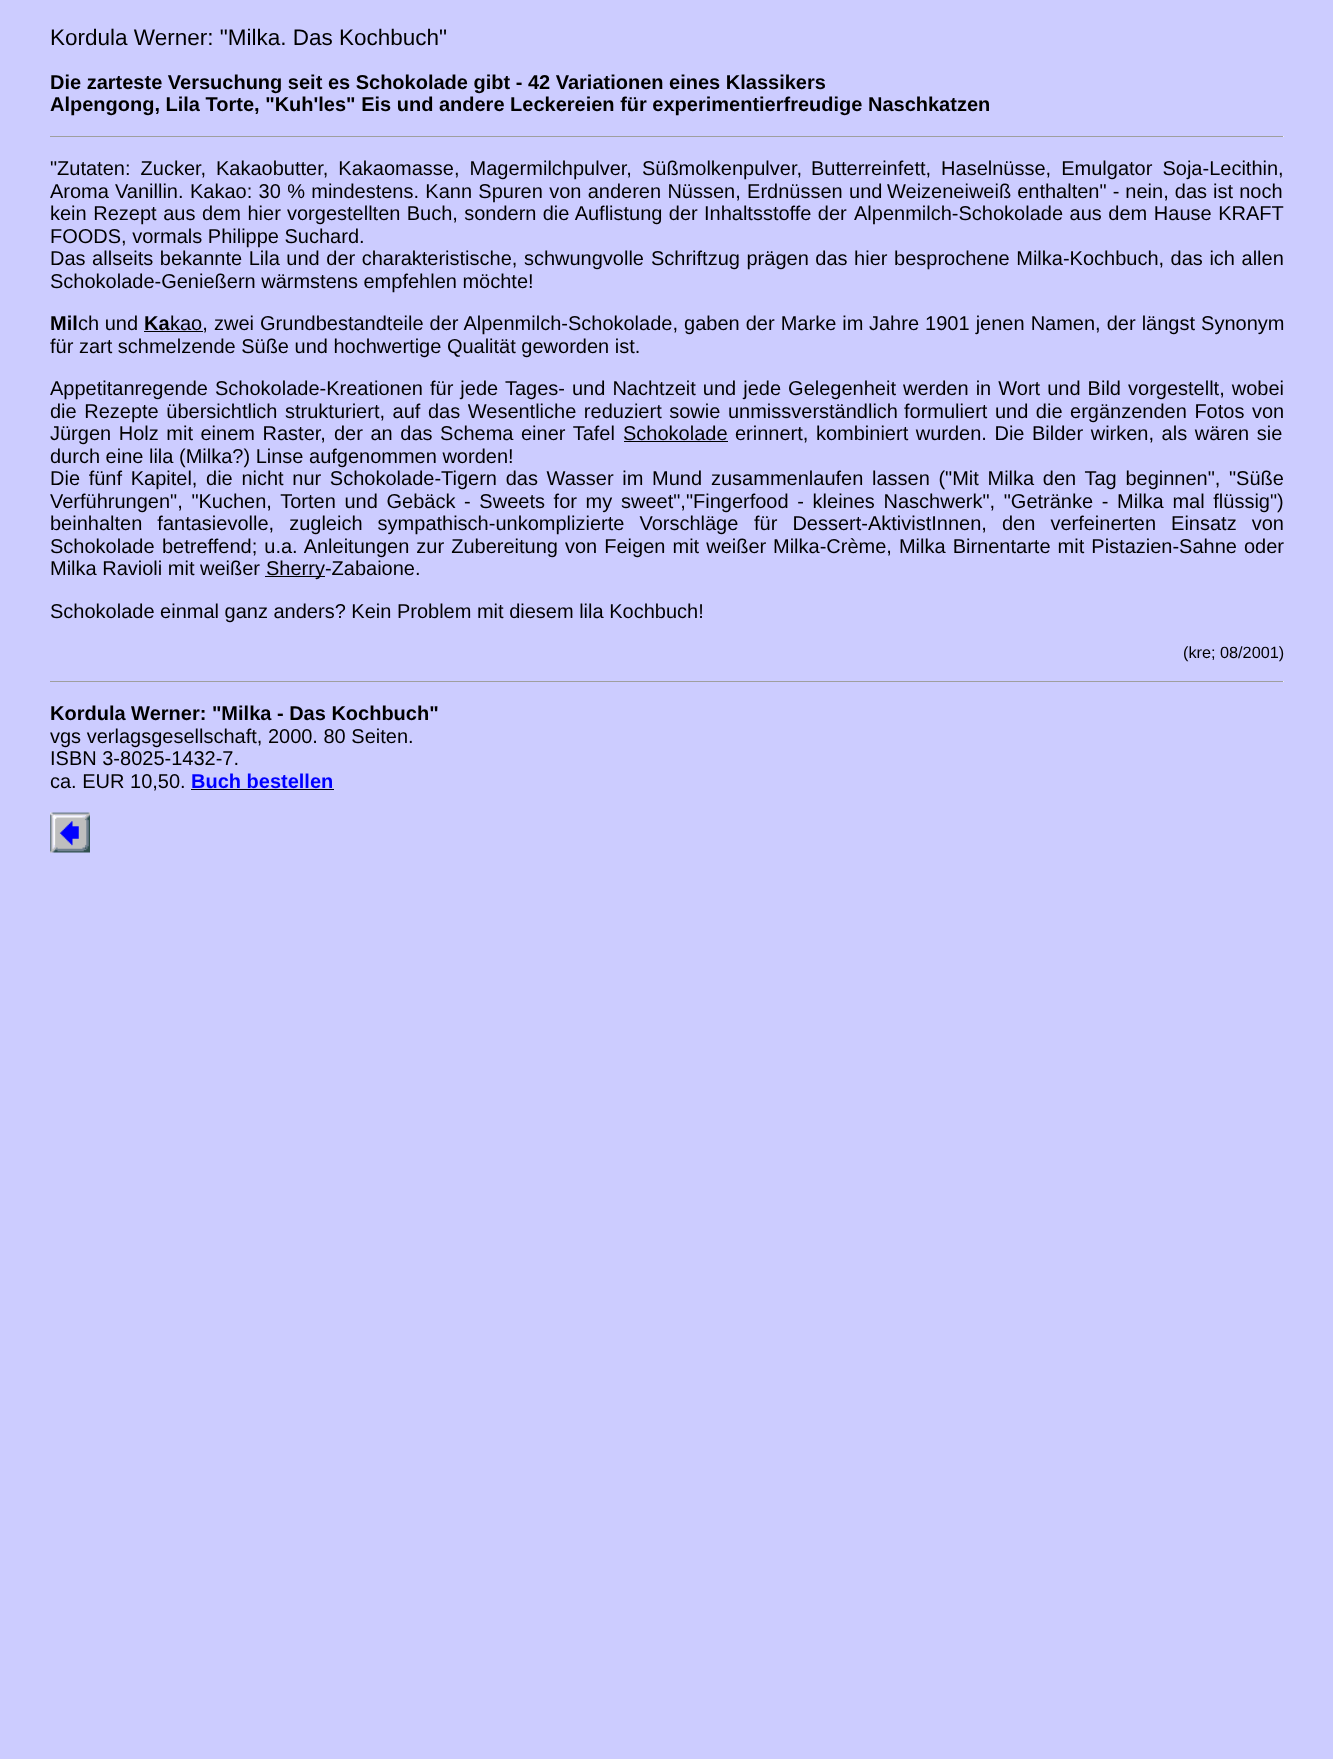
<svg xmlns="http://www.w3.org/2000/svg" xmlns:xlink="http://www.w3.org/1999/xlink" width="1333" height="1759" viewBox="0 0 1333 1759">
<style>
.cls-1{font:22.5px Liberation Sans;fill:#000000}
.cls-2{font:bold 20px Liberation Sans;fill:#000000}
.cls-3{font:20px Liberation Sans;fill:#000000}
.cls-4{font:16.25px Liberation Sans;fill:#000000}
.cls-5{font:bold 20px Liberation Sans;fill:#0000ff}
</style>
<rect width="100%" height="100%" fill="#ccccff"/>
<rect fill="#9f9f9f" x="50" y="136" width="1234" height="1"/>
<rect fill="#eeeeee" x="1283" y="136" width="1" height="1"/>
<rect fill="#000000" x="144" y="331" width="59" height="1"/>
<rect fill="#000000" x="624" y="441" width="104" height="1"/>
<rect fill="#000000" x="265" y="576" width="60" height="1"/>
<rect fill="#9f9f9f" x="50" y="681" width="1234" height="1"/>
<rect fill="#eeeeee" x="1283" y="681" width="1" height="1"/>
<rect fill="#000000" x="191" y="789" width="143" height="1"/>
<image xlink:href="image0.png" x="50" y="812" width="40" height="41"/>
<text class="cls-1" x="50" y="45">Kordula Werner: "Milka. Das Kochbuch"</text>
<text class="cls-2"><tspan x="50" y="89">Die zarteste Versuchung seit es Schokolade gibt - 42 Variationen eines Klassikers</tspan><tspan x="50" y="111">Alpengong, Lila Torte, "Kuh'les" Eis und andere Leckereien für experimentierfreudige Naschkatzen</tspan></text>
<text class="cls-3" x="50" y="175" word-spacing="4.5">"Zutaten: Zucker,</text>
<text class="cls-3" x="216" y="175" word-spacing="4.5">Kakaobutter, Kakaomasse, Magermilchpulver, Süßmolkenpulver,</text>
<text class="cls-3" x="811" y="175" word-spacing="4.5">Butterreinfett, Haselnüsse, Emulgator Soja-Lecithin,</text>
<text class="cls-3" x="50" y="198" word-spacing="0.5">Aroma Vanillin.</text>
<text class="cls-3" x="190" y="198" word-spacing="0.75">Kakao: 30 % mindestens. Kann Spuren von anderen Nüssen, Erdnüssen und</text>
<text class="cls-3" x="887" y="198" word-spacing="0.5">Weizeneiweiß enthalten" - nein, das ist noch</text>
<text class="cls-3" x="50" y="220" word-spacing="1">kein Rezept aus dem hier</text>
<text class="cls-3" x="287" y="220" word-spacing="0.75">vorgestellten Buch, sondern die Auflistung der Inhaltsstoffe der</text>
<text class="cls-3" x="854" y="220" word-spacing="1">Alpenmilch-Schokolade aus dem Hause KRAFT</text>
<text class="cls-3"><tspan x="50" y="243">FOODS, vormals Philippe Suchard.</tspan><tspan x="50" y="265" word-spacing="1">Das allseits bekannte Lila und der charakteristische, schwungvolle</tspan></text>
<text class="cls-3" x="651" y="265" word-spacing="1">Schriftzug prägen das hier besprochene Milka-Kochbuch, das ich allen</text>
<text class="cls-3" x="50" y="288">Schokolade-Genießern wärmstens empfehlen möchte!</text>
<text class="cls-2" x="50" y="330">Mil</text>
<text class="cls-3" x="78" y="330">ch und</text>
<text class="cls-2" x="144" y="330">Ka</text>
<text class="cls-3" x="170" y="330">kao,</text>
<text class="cls-3" x="214" y="330" word-spacing="0.5">zwei Grundbestandteile der Alpenmilch-Schokolade, gaben der Marke im</text>
<text class="cls-3" x="869" y="330" word-spacing="0.5">Jahre 1901 jenen Namen, der längst Synonym</text>
<text class="cls-3" x="50" y="353">für zart schmelzende Süße und hochwertige Qualität geworden ist.</text>
<text class="cls-3" x="50" y="395">Appetitanregende</text>
<text class="cls-3" x="215" y="395" word-spacing="1.5">Schokolade-Kreationen für jede Tages- und Nachtzeit und jede Gelegenheit</text>
<text class="cls-3" x="903" y="395" word-spacing="1.5">werden in Wort und Bild vorgestellt, wobei</text>
<text class="cls-3" x="50" y="418" word-spacing="2">die Rezepte übersichtlich</text>
<text class="cls-3" x="285" y="418" word-spacing="2">strukturiert, auf das Wesentliche reduziert sowie unmissverständlich</text>
<text class="cls-3" x="904" y="418" word-spacing="2">formuliert und die ergänzenden Fotos von</text>
<text class="cls-3" x="50" y="440" word-spacing="2">Jürgen Holz mit einem Raster,</text>
<text class="cls-3" x="334" y="440" word-spacing="2">der an das Schema einer Tafel</text>
<text class="cls-3" x="623" y="440">Schokolade</text>
<text class="cls-3" x="735" y="440" word-spacing="2">erinnert, kombiniert wurden. Die Bilder wirken, als wären sie</text>
<text class="cls-3"><tspan x="50" y="463">durch eine lila (Milka?) Linse aufgenommen worden!</tspan><tspan x="50" y="485" word-spacing="3.1">Die fünf Kapitel, die nicht nur Schokolade-Tigern das Wasser im Mund</tspan></text>
<text class="cls-3" x="711" y="485" word-spacing="3.1">zusammenlaufen lassen ("Mit Milka den Tag beginnen", "Süße</text>
<text class="cls-3" x="50" y="508" word-spacing="3.1">Verführungen", "Kuchen, Torten und Gebäck - Sweets for my</text>
<text class="cls-3" x="621" y="508" word-spacing="3.1">sweet","Fingerfood - kleines Naschwerk", "Getränke - Milka mal flüssig")</text>
<text class="cls-3" x="50" y="530" word-spacing="9.5">beinhalten fantasievolle, zugleich sympathisch-unkomplizierte Vorschläge</text>
<text class="cls-3" x="754" y="530" word-spacing="9.5">für Dessert-AktivistInnen, den verfeinerten Einsatz von</text>
<text class="cls-3" x="50" y="553">Schokolade</text>
<text class="cls-3" x="162" y="553" word-spacing="1.5">betreffend; u.a. Anleitungen zur Zubereitung von Feigen mit weißer</text>
<text class="cls-3" x="773" y="553" word-spacing="1.5">Milka-Crème, Milka Birnentarte mit Pistazien-Sahne oder</text>
<text class="cls-3" x="50" y="575">Milka Ravioli mit weißer</text>
<text class="cls-3" x="266" y="575">Sherry-Zabaione.</text>
<text class="cls-3" x="50" y="618">Schokolade einmal ganz anders? Kein Problem mit diesem lila Kochbuch!</text>
<text class="cls-4" x="1183" y="658">(kre; 08/2001)</text>
<text class="cls-2" x="50" y="720">Kordula Werner: "Milka - Das Kochbuch"</text>
<text class="cls-3"><tspan x="50" y="743">vgs verlagsgesellschaft, 2000. 80 Seiten.</tspan><tspan x="50" y="765">ISBN 3-8025-1432-7.</tspan><tspan x="50" y="788">ca. EUR 10,50.</tspan></text>
<text class="cls-5" x="191" y="788">Buch bestellen</text>
</svg>
